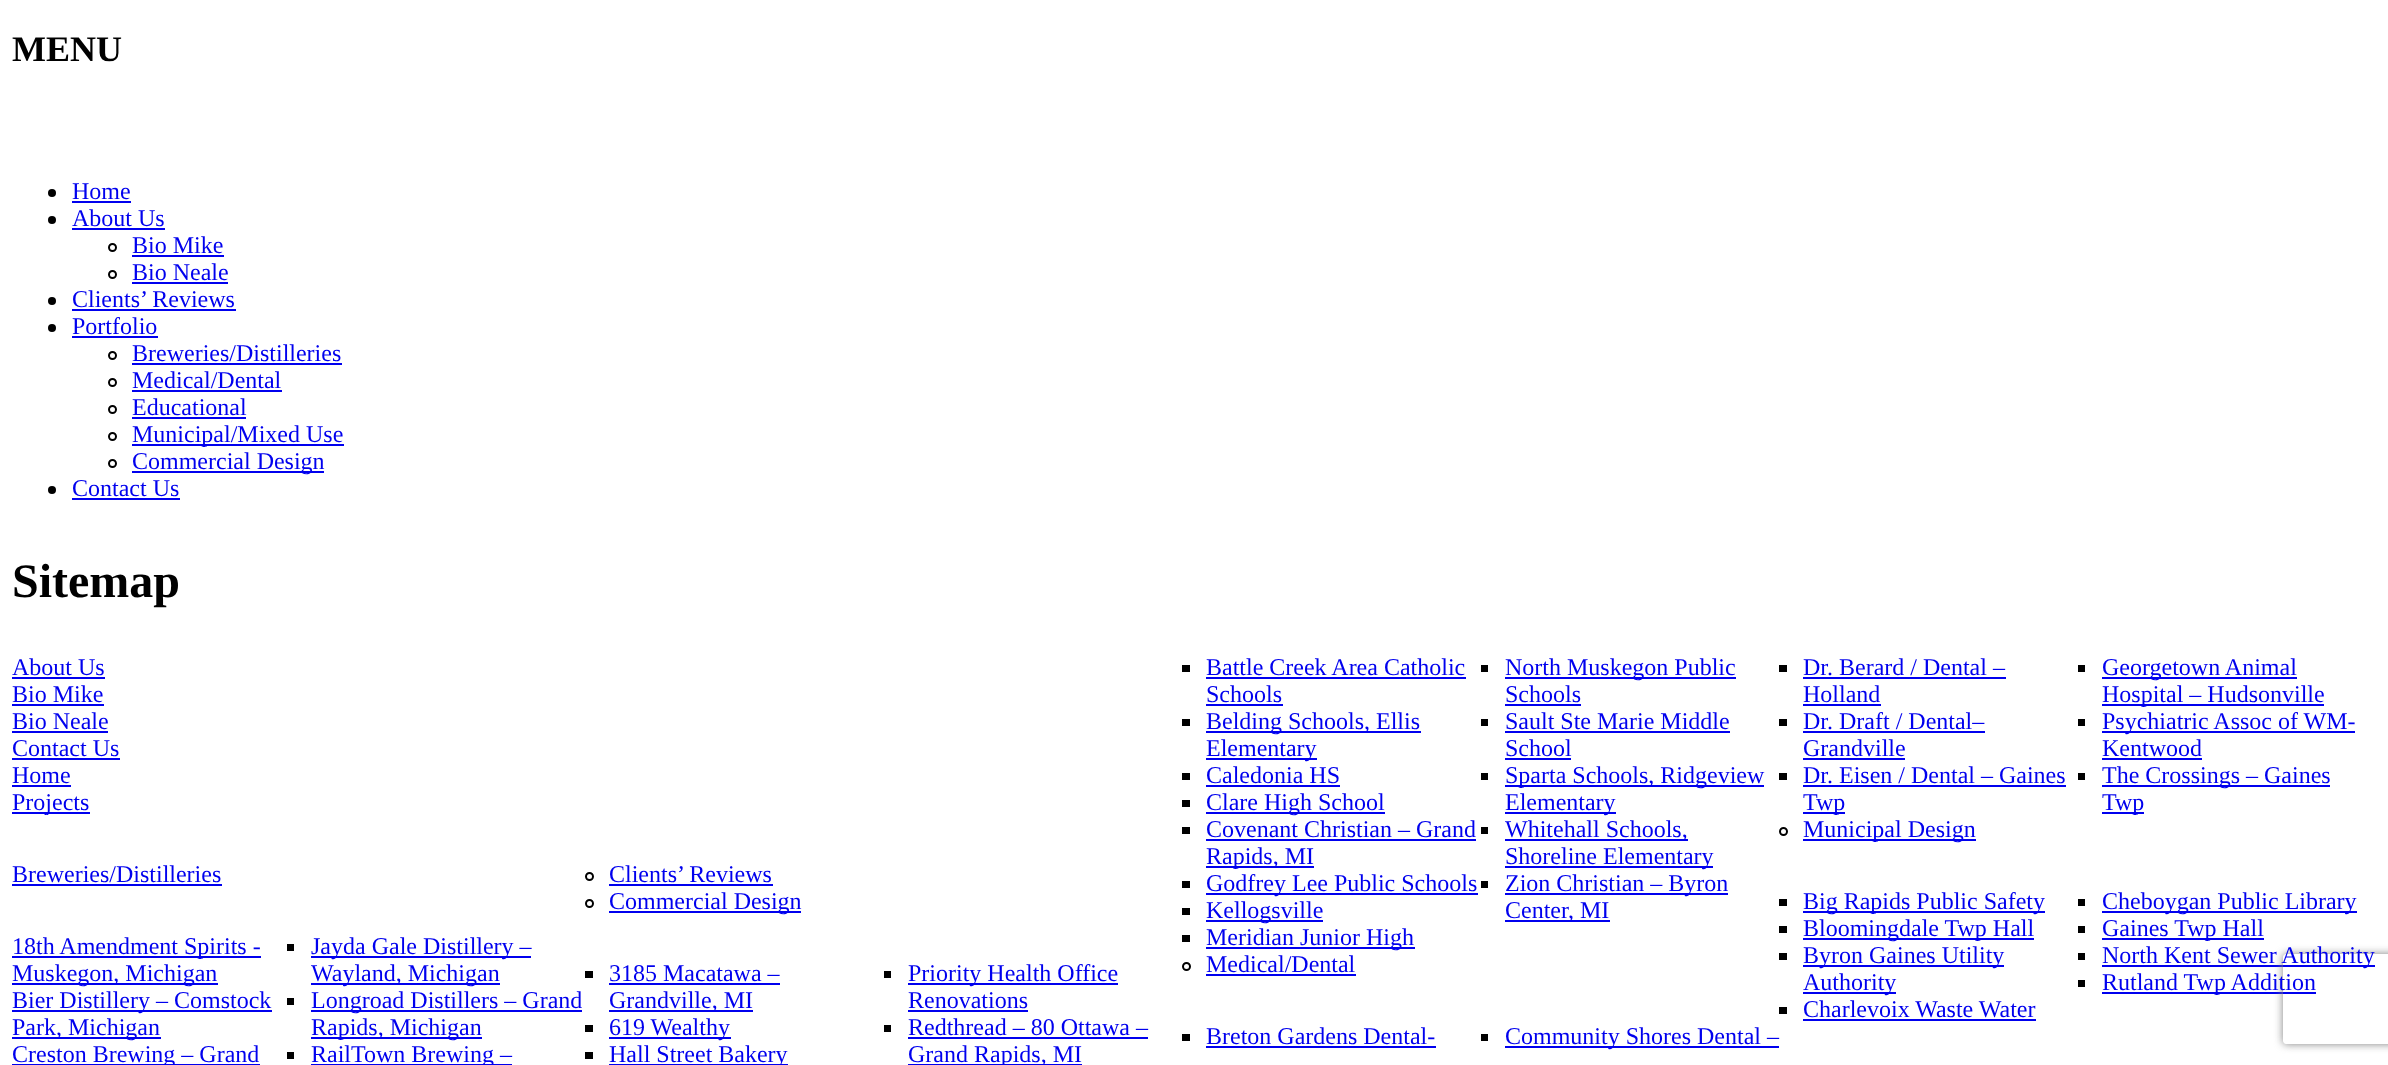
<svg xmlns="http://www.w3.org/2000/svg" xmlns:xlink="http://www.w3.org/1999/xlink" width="2388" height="1065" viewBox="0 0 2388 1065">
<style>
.cls-1{font:bold 36px Liberation Serif;fill:#000000}
.cls-2{font:24px Liberation Serif;fill:#0000ee}
.cls-3{font:bold 48px Liberation Serif;fill:#000000}
</style>
<defs>
<clipPath id="clip1"><path d="M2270 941H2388V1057H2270ZM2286 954H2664C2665.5 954 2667 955.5 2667 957V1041C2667 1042.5 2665.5 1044 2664 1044H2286C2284.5 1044 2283 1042.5 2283 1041V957C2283 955.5 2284.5 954 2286 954Z" clip-rule="evenodd"/></clipPath>
</defs>
<rect width="100%" height="100%" fill="#ffffff"/>
<circle fill="#000000" cx="52" cy="193" r="4"/>
<rect fill="#0000ee" x="72" y="201" width="59" height="2"/>
<circle fill="#000000" cx="52" cy="220" r="4"/>
<rect fill="#0000ee" x="72" y="228" width="93" height="2"/>
<circle fill="none" stroke="#000000" stroke-width="2" cx="112.5" cy="247.5" r="3.5"/>
<rect fill="#0000ee" x="132" y="255" width="92" height="2"/>
<circle fill="none" stroke="#000000" stroke-width="2" cx="112.5" cy="274.5" r="3.5"/>
<rect fill="#0000ee" x="132" y="282" width="96" height="2"/>
<circle fill="#000000" cx="52" cy="301" r="4"/>
<rect fill="#0000ee" x="72" y="309" width="164" height="2"/>
<circle fill="#000000" cx="52" cy="328" r="4"/>
<rect fill="#0000ee" x="72" y="336" width="86" height="2"/>
<circle fill="none" stroke="#000000" stroke-width="2" cx="112.5" cy="355.5" r="3.5"/>
<rect fill="#0000ee" x="132" y="363" width="210" height="2"/>
<circle fill="none" stroke="#000000" stroke-width="2" cx="112.5" cy="382.5" r="3.5"/>
<rect fill="#0000ee" x="132" y="390" width="150" height="2"/>
<circle fill="none" stroke="#000000" stroke-width="2" cx="112.5" cy="409.5" r="3.5"/>
<rect fill="#0000ee" x="132" y="417" width="114" height="2"/>
<circle fill="none" stroke="#000000" stroke-width="2" cx="112.5" cy="436.5" r="3.5"/>
<rect fill="#0000ee" x="132" y="444" width="212" height="2"/>
<circle fill="none" stroke="#000000" stroke-width="2" cx="112.5" cy="463.5" r="3.5"/>
<rect fill="#0000ee" x="132" y="471" width="192" height="2"/>
<circle fill="#000000" cx="52" cy="490" r="4"/>
<rect fill="#0000ee" x="72" y="498" width="108" height="2"/>
<rect fill="#0000ee" x="12" y="677" width="93" height="2"/>
<rect fill="#000000" x="1182" y="665" width="8" height="7"/>
<rect fill="#0000ee" x="1206" y="677" width="260" height="2"/>
<rect fill="#0000ee" x="1206" y="704" width="77" height="2"/>
<rect fill="#000000" x="1481" y="665" width="7" height="7"/>
<rect fill="#0000ee" x="1505" y="677" width="231" height="2"/>
<rect fill="#0000ee" x="1505" y="704" width="76" height="2"/>
<rect fill="#000000" x="1182" y="719" width="8" height="7"/>
<rect fill="#0000ee" x="1206" y="731" width="215" height="2"/>
<rect fill="#0000ee" x="1206" y="758" width="111" height="2"/>
<rect fill="#000000" x="1481" y="719" width="7" height="7"/>
<rect fill="#0000ee" x="1505" y="731" width="225" height="2"/>
<rect fill="#0000ee" x="1505" y="758" width="66" height="2"/>
<rect fill="#000000" x="1182" y="773" width="8" height="7"/>
<rect fill="#0000ee" x="1206" y="785" width="134" height="2"/>
<rect fill="#000000" x="1481" y="773" width="7" height="7"/>
<rect fill="#0000ee" x="1505" y="785" width="259" height="2"/>
<rect fill="#0000ee" x="1505" y="812" width="111" height="2"/>
<rect fill="#000000" x="1182" y="800" width="8" height="7"/>
<rect fill="#0000ee" x="1206" y="812" width="179" height="2"/>
<rect fill="#000000" x="1182" y="827" width="8" height="7"/>
<rect fill="#0000ee" x="1206" y="839" width="270" height="2"/>
<rect fill="#0000ee" x="1206" y="866" width="108" height="2"/>
<rect fill="#000000" x="1481" y="827" width="7" height="7"/>
<rect fill="#0000ee" x="1505" y="839" width="183" height="2"/>
<rect fill="#0000ee" x="1505" y="866" width="208" height="2"/>
<rect fill="#000000" x="1182" y="881" width="8" height="7"/>
<rect fill="#0000ee" x="1206" y="893" width="272" height="2"/>
<rect fill="#000000" x="1481" y="881" width="7" height="7"/>
<rect fill="#0000ee" x="1505" y="893" width="223" height="2"/>
<rect fill="#0000ee" x="1505" y="920" width="105" height="2"/>
<rect fill="#000000" x="1182" y="908" width="8" height="7"/>
<rect fill="#0000ee" x="1206" y="920" width="117" height="2"/>
<rect fill="#000000" x="1182" y="935" width="8" height="7"/>
<rect fill="#0000ee" x="1206" y="947" width="209" height="2"/>
<rect fill="#000000" x="1779" y="665" width="8" height="7"/>
<rect fill="#0000ee" x="1803" y="677" width="203" height="2"/>
<rect fill="#0000ee" x="1803" y="704" width="78" height="2"/>
<rect fill="#000000" x="2078" y="665" width="7" height="7"/>
<rect fill="#0000ee" x="2102" y="677" width="195" height="2"/>
<rect fill="#0000ee" x="2102" y="704" width="222" height="2"/>
<rect fill="#000000" x="1779" y="719" width="8" height="7"/>
<rect fill="#0000ee" x="1803" y="731" width="182" height="2"/>
<rect fill="#0000ee" x="1803" y="758" width="102" height="2"/>
<rect fill="#000000" x="2078" y="719" width="7" height="7"/>
<rect fill="#0000ee" x="2102" y="731" width="253" height="2"/>
<rect fill="#0000ee" x="2102" y="758" width="100" height="2"/>
<rect fill="#000000" x="1779" y="773" width="8" height="7"/>
<rect fill="#0000ee" x="1803" y="785" width="263" height="2"/>
<rect fill="#0000ee" x="1803" y="812" width="42" height="2"/>
<rect fill="#000000" x="2078" y="773" width="7" height="7"/>
<rect fill="#0000ee" x="2102" y="785" width="228" height="2"/>
<rect fill="#0000ee" x="2102" y="812" width="42" height="2"/>
<rect fill="#000000" x="1182" y="1034" width="8" height="7"/>
<rect fill="#0000ee" x="1206" y="1046" width="230" height="2"/>
<rect fill="#000000" x="1481" y="1034" width="7" height="7"/>
<rect fill="#0000ee" x="1505" y="1046" width="274" height="2"/>
<circle fill="none" stroke="#000000" stroke-width="2" cx="1186.5" cy="966.5" r="3.5"/>
<rect fill="#0000ee" x="1206" y="974" width="150" height="2"/>
<rect fill="#0000ee" x="12" y="884" width="210" height="2"/>
<rect fill="#0000ee" x="12" y="956" width="249" height="2"/>
<rect fill="#0000ee" x="12" y="983" width="206" height="2"/>
<rect fill="#000000" x="287" y="944" width="7" height="7"/>
<rect fill="#0000ee" x="311" y="956" width="220" height="2"/>
<rect fill="#0000ee" x="311" y="983" width="189" height="2"/>
<rect fill="#0000ee" x="12" y="1010" width="260" height="2"/>
<rect fill="#0000ee" x="12" y="1037" width="149" height="2"/>
<rect fill="#000000" x="287" y="998" width="7" height="7"/>
<rect fill="#0000ee" x="311" y="1010" width="271" height="2"/>
<rect fill="#0000ee" x="311" y="1037" width="171" height="2"/>
<rect fill="#0000ee" x="12" y="1064" width="248" height="1"/>
<rect fill="#000000" x="287" y="1052" width="7" height="7"/>
<rect fill="#0000ee" x="311" y="1064" width="201" height="1"/>
<circle fill="none" stroke="#000000" stroke-width="2" cx="589.5" cy="876.5" r="3.5"/>
<rect fill="#0000ee" x="609" y="884" width="164" height="2"/>
<circle fill="none" stroke="#000000" stroke-width="2" cx="1783.5" cy="831.5" r="3.5"/>
<rect fill="#0000ee" x="1803" y="839" width="173" height="2"/>
<rect fill="#000000" x="1779" y="899" width="8" height="7"/>
<rect fill="#0000ee" x="1803" y="911" width="242" height="2"/>
<rect fill="#000000" x="2078" y="899" width="7" height="7"/>
<rect fill="#0000ee" x="2102" y="911" width="255" height="2"/>
<rect fill="#000000" x="1779" y="926" width="8" height="7"/>
<rect fill="#0000ee" x="1803" y="938" width="231" height="2"/>
<rect fill="#000000" x="2078" y="926" width="7" height="7"/>
<rect fill="#0000ee" x="2102" y="938" width="162" height="2"/>
<rect fill="#000000" x="1779" y="953" width="8" height="7"/>
<rect fill="#0000ee" x="1803" y="965" width="201" height="2"/>
<rect fill="#0000ee" x="1803" y="992" width="93" height="2"/>
<rect fill="#000000" x="2078" y="953" width="7" height="7"/>
<rect fill="#0000ee" x="2102" y="965" width="273" height="2"/>
<rect fill="#000000" x="2078" y="980" width="7" height="7"/>
<rect fill="#0000ee" x="2102" y="992" width="214" height="2"/>
<rect fill="#000000" x="1779" y="1007" width="8" height="7"/>
<rect fill="#0000ee" x="1803" y="1019" width="233" height="2"/>
<circle fill="none" stroke="#000000" stroke-width="2" cx="589.5" cy="903.5" r="3.5"/>
<rect fill="#0000ee" x="609" y="911" width="192" height="2"/>
<rect fill="#000000" x="585" y="971" width="8" height="7"/>
<rect fill="#0000ee" x="609" y="983" width="171" height="2"/>
<rect fill="#0000ee" x="609" y="1010" width="144" height="2"/>
<rect fill="#000000" x="884" y="971" width="7" height="7"/>
<rect fill="#0000ee" x="908" y="983" width="210" height="2"/>
<rect fill="#0000ee" x="908" y="1010" width="120" height="2"/>
<rect fill="#000000" x="585" y="1025" width="8" height="7"/>
<rect fill="#0000ee" x="609" y="1037" width="122" height="2"/>
<rect fill="#000000" x="884" y="1025" width="7" height="7"/>
<rect fill="#0000ee" x="908" y="1037" width="240" height="2"/>
<rect fill="#0000ee" x="908" y="1064" width="174" height="1"/>
<rect fill="#000000" x="585" y="1052" width="8" height="7"/>
<rect fill="#0000ee" x="609" y="1064" width="179" height="1"/>
<rect fill="#0000ee" x="12" y="812" width="78" height="2"/>
<rect fill="#0000ee" x="12" y="704" width="92" height="2"/>
<rect fill="#0000ee" x="12" y="731" width="96" height="2"/>
<rect fill="#0000ee" x="12" y="758" width="108" height="2"/>
<rect fill="#0000ee" x="12" y="785" width="59" height="2"/>
<g clip-path="url(#clip1)">
<rect fill="#808080" filter="blur(4px)" x="2283" y="954" width="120" height="90" rx="3"/>
</g>
<text class="cls-1" x="12" y="61">MENU</text>
<text class="cls-2"><tspan x="72" y="199">Home</tspan><tspan x="72" y="226">About Us</tspan></text>
<text class="cls-2"><tspan x="132" y="253">Bio Mike</tspan><tspan x="132" y="280">Bio Neale</tspan></text>
<text class="cls-2"><tspan x="72" y="307">Clients’ Reviews</tspan><tspan x="72" y="334">Portfolio</tspan></text>
<text class="cls-2"><tspan x="132" y="361">Breweries/Distilleries</tspan><tspan x="132" y="388">Medical/Dental</tspan><tspan x="132" y="415">Educational</tspan><tspan x="132" y="442">Municipal/Mixed Use</tspan><tspan x="132" y="469">Commercial Design</tspan></text>
<text class="cls-2" x="72" y="496">Contact Us</text>
<text class="cls-3" x="12" y="597">Sitemap</text>
<text class="cls-2" x="12" y="675">About Us</text>
<text class="cls-2"><tspan x="1206" y="675">Battle Creek Area Catholic</tspan><tspan x="1206" y="702">Schools</tspan></text>
<text class="cls-2"><tspan x="1505" y="675">North Muskegon Public</tspan><tspan x="1505" y="702">Schools</tspan></text>
<text class="cls-2"><tspan x="1206" y="729">Belding Schools, Ellis</tspan><tspan x="1206" y="756">Elementary</tspan></text>
<text class="cls-2"><tspan x="1505" y="729">Sault Ste Marie Middle</tspan><tspan x="1505" y="756">School</tspan></text>
<text class="cls-2" x="1206" y="783">Caledonia HS</text>
<text class="cls-2"><tspan x="1505" y="783">Sparta Schools, Ridgeview</tspan><tspan x="1505" y="810">Elementary</tspan></text>
<text class="cls-2"><tspan x="1206" y="810">Clare High School</tspan><tspan x="1206" y="837">Covenant Christian – Grand</tspan><tspan x="1206" y="864">Rapids, MI</tspan></text>
<text class="cls-2"><tspan x="1505" y="837">Whitehall Schools,</tspan><tspan x="1505" y="864">Shoreline Elementary</tspan></text>
<text class="cls-2" x="1206" y="891">Godfrey Lee Public Schools</text>
<text class="cls-2"><tspan x="1505" y="891">Zion Christian – Byron</tspan><tspan x="1505" y="918">Center, MI</tspan></text>
<text class="cls-2"><tspan x="1206" y="918">Kellogsville</tspan><tspan x="1206" y="945">Meridian Junior High</tspan></text>
<text class="cls-2"><tspan x="1803" y="675">Dr. Berard / Dental –</tspan><tspan x="1803" y="702">Holland</tspan></text>
<text class="cls-2"><tspan x="2102" y="675">Georgetown Animal</tspan><tspan x="2102" y="702">Hospital – Hudsonville</tspan></text>
<text class="cls-2"><tspan x="1803" y="729">Dr. Draft / Dental–</tspan><tspan x="1803" y="756">Grandville</tspan></text>
<text class="cls-2"><tspan x="2102" y="729">Psychiatric Assoc of WM-</tspan><tspan x="2102" y="756">Kentwood</tspan></text>
<text class="cls-2"><tspan x="1803" y="783">Dr. Eisen / Dental – Gaines</tspan><tspan x="1803" y="810">Twp</tspan></text>
<text class="cls-2"><tspan x="2102" y="783">The Crossings – Gaines</tspan><tspan x="2102" y="810">Twp</tspan></text>
<text class="cls-2" x="1206" y="1044">Breton Gardens Dental-</text>
<text class="cls-2" x="1505" y="1044">Community Shores Dental –</text>
<text class="cls-2" x="1206" y="972">Medical/Dental</text>
<text class="cls-2" x="12" y="882">Breweries/Distilleries</text>
<text class="cls-2"><tspan x="12" y="954">18th Amendment Spirits -</tspan><tspan x="12" y="981">Muskegon, Michigan</tspan></text>
<text class="cls-2"><tspan x="311" y="954">Jayda Gale Distillery –</tspan><tspan x="311" y="981">Wayland, Michigan</tspan></text>
<text class="cls-2"><tspan x="12" y="1008">Bier Distillery – Comstock</tspan><tspan x="12" y="1035">Park, Michigan</tspan></text>
<text class="cls-2"><tspan x="311" y="1008">Longroad Distillers – Grand</tspan><tspan x="311" y="1035">Rapids, Michigan</tspan></text>
<text class="cls-2" x="12" y="1062">Creston Brewing – Grand</text>
<text class="cls-2" x="311" y="1062">RailTown Brewing –</text>
<text class="cls-2" x="609" y="882">Clients’ Reviews</text>
<text class="cls-2" x="1803" y="837">Municipal Design</text>
<text class="cls-2" x="1803" y="909">Big Rapids Public Safety</text>
<text class="cls-2" x="2102" y="909">Cheboygan Public Library</text>
<text class="cls-2" x="1803" y="936">Bloomingdale Twp Hall</text>
<text class="cls-2" x="2102" y="936">Gaines Twp Hall</text>
<text class="cls-2"><tspan x="1803" y="963">Byron Gaines Utility</tspan><tspan x="1803" y="990">Authority</tspan></text>
<text class="cls-2"><tspan x="2102" y="963">North Kent Sewer Authority</tspan><tspan x="2102" y="990">Rutland Twp Addition</tspan></text>
<text class="cls-2" x="1803" y="1017">Charlevoix Waste Water</text>
<text class="cls-2" x="609" y="909">Commercial Design</text>
<text class="cls-2"><tspan x="609" y="981">3185 Macatawa –</tspan><tspan x="609" y="1008">Grandville, MI</tspan></text>
<text class="cls-2"><tspan x="908" y="981">Priority Health Office</tspan><tspan x="908" y="1008">Renovations</tspan></text>
<text class="cls-2" x="609" y="1035">619 Wealthy</text>
<text class="cls-2"><tspan x="908" y="1035">Redthread – 80 Ottawa –</tspan><tspan x="908" y="1062">Grand Rapids, MI</tspan></text>
<text class="cls-2" x="609" y="1062">Hall Street Bakery</text>
<text class="cls-2" x="12" y="810">Projects</text>
<text class="cls-2"><tspan x="12" y="702">Bio Mike</tspan><tspan x="12" y="729">Bio Neale</tspan><tspan x="12" y="756">Contact Us</tspan><tspan x="12" y="783">Home</tspan></text>
</svg>
